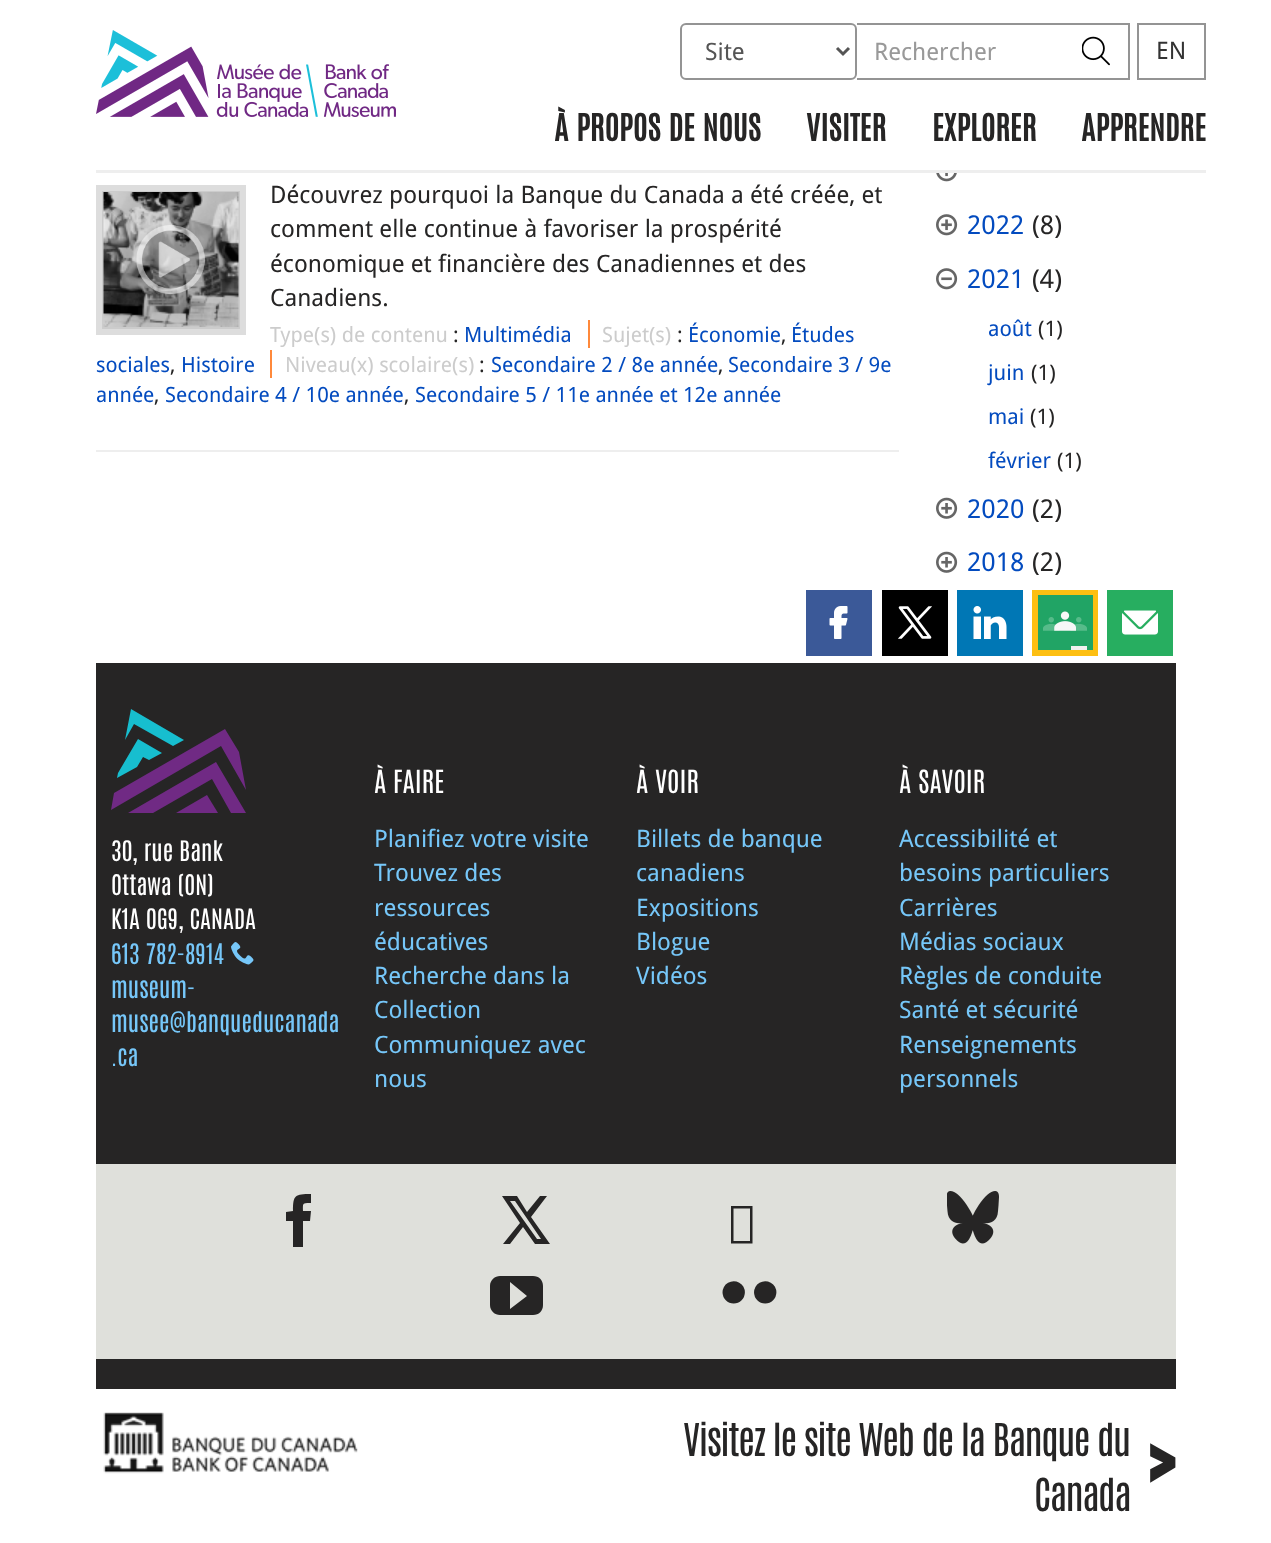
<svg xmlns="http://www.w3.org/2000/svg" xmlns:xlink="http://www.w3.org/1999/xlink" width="1271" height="1543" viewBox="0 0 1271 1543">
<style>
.cls-1{font:24px Droid Sans;fill:#555555}
.cls-2{font:24px Droid Sans;fill:#999999}
.cls-3{font:24px Droid Sans;fill:#333333}
.cls-4{font:bold 31.5px Antonio;fill:#262525}
.cls-5{font:24px Droid Sans;fill:#262525}
.cls-6{font:21px Droid Sans;fill:#cccccc}
.cls-7{font:21px Droid Sans;fill:#262525}
.cls-8{font:21px Droid Sans;fill:#034bbf}
.cls-9{font:26px Droid Sans;fill:#034bbf}
.cls-10{font:26px Droid Sans;fill:#262525}
.cls-11{font:21.5px Droid Sans;fill:#034bbf}
.cls-12{font:21.5px Droid Sans;fill:#262525}
.cls-13{font:24px Antonio;fill:#ffffff}
.cls-14{font:24px Antonio;fill:#76c7f9}
.cls-15{font:27px Antonio;fill:#ffffff}
.cls-16{font:24px Droid Sans;fill:#76c7f9}
.cls-17{font:52px Liberation Sans;fill:#262525}
.cls-18{font:38.4px Antonio;letter-spacing:-1.5px;fill:#262525}
.cls-19{font:bold 96px Antonio;letter-spacing:-1.5px;fill:#262525}
</style>
<rect width="100%" height="100%" fill="#ffffff"/>
<rect fill="#eeeeee" x="96" y="170" width="1110" height="3"/>
<image xlink:href="image0.png" x="96" y="30" width="300" height="87"/>
<rect fill="none" stroke="#949494" stroke-width="2" x="681" y="24" width="175" height="55" rx="5"/>
<path fill="none" stroke="#555555" stroke-width="3" d="M837 48L843 54L849 48"/>
<rect fill="#949494" x="857" y="23" width="273" height="2"/>
<rect fill="#949494" x="857" y="78" width="207" height="2"/>
<rect fill="#949494" x="1128" y="23" width="2" height="57"/>
<rect fill="#949494" x="1064" y="78" width="66" height="2"/>
<image xlink:href="image1.png" x="1082" y="36" width="28" height="30"/>
<rect fill="none" stroke="#949494" stroke-width="2" x="1138" y="24" width="67" height="55"/>
<rect fill="#eeeeee" x="96" y="450" width="803" height="2"/>
<rect fill="none" stroke="#dddddd" stroke-width="6" x="99" y="188" width="144" height="144"/>
<rect fill="none" stroke="#cccccc" stroke-width="2" x="103" y="192" width="136" height="136"/>
<image xlink:href="image2.png" x="103" y="192" width="136" height="135"/>
<image xlink:href="image3.png" x="136" y="225" width="69" height="69"/>
<rect fill="#ff893b" x="588" y="320" width="2" height="28"/>
<rect fill="#ff893b" x="270" y="350" width="2" height="28"/>
<image xlink:href="image4.png" x="936" y="173" width="21" height="9"/>
<image xlink:href="image5.png" x="936" y="214" width="22" height="22"/>
<image xlink:href="image6.png" x="936" y="268" width="22" height="22"/>
<image xlink:href="image7.png" x="936" y="497" width="22" height="22"/>
<image xlink:href="image7.png" x="936" y="551" width="22" height="22"/>
<rect fill="#3b5998" x="806" y="590" width="66" height="66"/>
<image xlink:href="image8.png" x="829" y="606" width="19" height="33"/>
<rect fill="#000000" x="882" y="590" width="66" height="66"/>
<image xlink:href="image9.png" x="898" y="606" width="34" height="33"/>
<rect fill="#0077b5" x="957" y="590" width="66" height="66"/>
<image xlink:href="image10.png" x="973" y="606" width="34" height="33"/>
<rect fill="#fdbf12" x="1032" y="590" width="66" height="66"/>
<image xlink:href="image11.png" x="1038" y="595" width="55" height="55"/>
<rect fill="#27ae60" x="1107" y="590" width="66" height="66"/>
<image xlink:href="image12.png" x="1122" y="610" width="36" height="25"/>
<rect fill="#262525" x="96" y="663" width="1080" height="726"/>
<path fill="#702a84" d="M246 790L239 752L225 729L114 793L111 810L221 746Z"/>
<path fill="#17becf" d="M173 746L184 740L131 709L125 740L134 724Z"/>
<path fill="#17becf" d="M143 757L149 760L162 753L138 739L118 773L117 778L137 767Z"/>
<path fill="#702a84" d="M128 813H153L212 779L231 813H246L216 762Z"/>
<path fill="#702a84" d="M176 813H218L207 795Z"/>
<image xlink:href="image13.png" x="231" y="942" width="23" height="23"/>
<rect fill="#dfe0db" x="96" y="1164" width="1080" height="195"/>
<path fill="#262525" d="M303 1247H293V1221H286V1212L293 1211C293 1195 295 1194 311 1194V1203C302 1203 303 1203 303 1211H311L310 1221H303Z"/>
<path fill="#262525" d="M540 1196H547L531 1217L550 1244H535L523 1227L510 1244H503L520 1223L502 1196H517L527 1212ZM537 1239H541L515 1201H510Z"/>
<path fill="#262525" d="M731 1243.5V1206H752.5V1243.5ZM733.5 1241H750V1208.5H733.5Z"/>
<image xlink:href="image14.png" x="947" y="1191" width="52" height="53"/>
<path fill="#262525" d="M533 1276H500C495 1276 490 1280 490 1286V1305C490 1311 495 1315 500 1315H533C539 1315 543 1311 543 1305V1286C543 1280 539 1276 533 1276ZM510 1309V1282L527 1296Z"/>
<image xlink:href="image15.png" x="103" y="1412" width="255" height="62"/>
<text class="cls-1" x="705" y="60">Site</text>
<text class="cls-2" x="874" y="60">Rechercher</text>
<text class="cls-3" x="1156" y="59">EN</text>
<text class="cls-4" x="554" y="141">À PROPOS DE NOUS</text>
<text class="cls-4" x="806" y="141">VISITER</text>
<text class="cls-4" x="932" y="141">EXPLORER</text>
<text class="cls-4" x="1081" y="141">APPRENDRE</text>
<text class="cls-5"><tspan x="270" y="203">Découvrez pourquoi la Banque du Canada a été créée, et</tspan><tspan x="270" y="237">comment elle continue à favoriser la prospérité</tspan><tspan x="270" y="272">économique et financière des Canadiennes et des</tspan><tspan x="270" y="306">Canadiens.</tspan></text>
<text class="cls-6" x="270" y="342">Type(s) de contenu</text>
<text class="cls-7" x="453" y="342">:</text>
<text class="cls-8" x="464" y="342">Multimédia</text>
<text class="cls-6" x="602" y="342">Sujet(s)</text>
<text class="cls-7" x="677" y="342">:</text>
<text class="cls-8" x="688" y="342">Économie</text>
<text class="cls-7" x="781" y="342">,</text>
<text class="cls-8" x="791" y="342">Études</text>
<text class="cls-8" x="96" y="372">sociales</text>
<text class="cls-7" x="170" y="372">,</text>
<text class="cls-8" x="181" y="372">Histoire</text>
<text class="cls-6" x="285" y="372">Niveau(x) scolaire(s)</text>
<text class="cls-7" x="479" y="372">:</text>
<text class="cls-8" x="491" y="372">Secondaire 2 / 8e année</text>
<text class="cls-7" x="718" y="372">,</text>
<text class="cls-8" x="728" y="372">Secondaire 3 / 9e</text>
<text class="cls-8" x="96" y="402">année</text>
<text class="cls-7" x="154" y="402">,</text>
<text class="cls-8" x="165" y="402">Secondaire 4 / 10e année</text>
<text class="cls-7" x="404" y="402">,</text>
<text class="cls-8" x="415" y="402">Secondaire 5 / 11e année et 12e année</text>
<text class="cls-9" x="967" y="234">2022</text>
<text class="cls-10" x="1032" y="234">(8)</text>
<text class="cls-9" x="967" y="288">2021</text>
<text class="cls-10" x="1032" y="288">(4)</text>
<text class="cls-11" x="988" y="336">août</text>
<text class="cls-12" x="1038" y="336">(1)</text>
<text class="cls-11" x="988" y="380">juin</text>
<text class="cls-12" x="1031" y="380">(1)</text>
<text class="cls-11" x="988" y="424">mai</text>
<text class="cls-12" x="1030" y="424">(1)</text>
<text class="cls-11" x="988" y="468">février</text>
<text class="cls-12" x="1057" y="468">(1)</text>
<text class="cls-9" x="967" y="518">2020</text>
<text class="cls-10" x="1032" y="518">(2)</text>
<text class="cls-9" x="967" y="571">2018</text>
<text class="cls-10" x="1032" y="571">(2)</text>
<text class="cls-13"><tspan x="111" y="861">30, rue Bank</tspan><tspan x="111" y="895">Ottawa (ON)</tspan><tspan x="111" y="929">K1A 0G9, CANADA</tspan></text>
<text class="cls-14"><tspan x="111" y="964">613 782‑8914</tspan><tspan x="111" y="998">museum-</tspan><tspan x="111" y="1032">musee@banqueducanada</tspan><tspan x="111" y="1066">.ca</tspan></text>
<text class="cls-15" x="374" y="793">À FAIRE</text>
<text class="cls-16"><tspan x="374" y="847">Planifiez votre visite</tspan><tspan x="374" y="881">Trouvez des</tspan><tspan x="374" y="916">ressources</tspan><tspan x="374" y="950">éducatives</tspan><tspan x="374" y="984">Recherche dans la</tspan><tspan x="374" y="1018">Collection</tspan><tspan x="374" y="1053">Communiquez avec</tspan><tspan x="374" y="1087">nous</tspan></text>
<text class="cls-15" x="636" y="793">À VOIR</text>
<text class="cls-16"><tspan x="636" y="847">Billets de banque</tspan><tspan x="636" y="881">canadiens</tspan><tspan x="636" y="916">Expositions</tspan><tspan x="636" y="950">Blogue</tspan><tspan x="636" y="984">Vidéos</tspan></text>
<text class="cls-15" x="899" y="793">À SAVOIR</text>
<text class="cls-16"><tspan x="899" y="847">Accessibilité et</tspan><tspan x="899" y="881">besoins particuliers</tspan><tspan x="899" y="916">Carrières</tspan><tspan x="899" y="950">Médias sociaux</tspan><tspan x="899" y="984">Règles de conduite</tspan><tspan x="899" y="1018">Santé et sécurité</tspan><tspan x="899" y="1053">Renseignements</tspan><tspan x="899" y="1087">personnels</tspan></text>
<text class="cls-17" x="718" y="1307">●●</text>
<text class="cls-18" x="683" y="1456">Visitez le site Web de la Banque du</text>
<text class="cls-19" x="1143" y="1499">›</text>
<text class="cls-18" x="1034" y="1511">Canada</text>
</svg>
